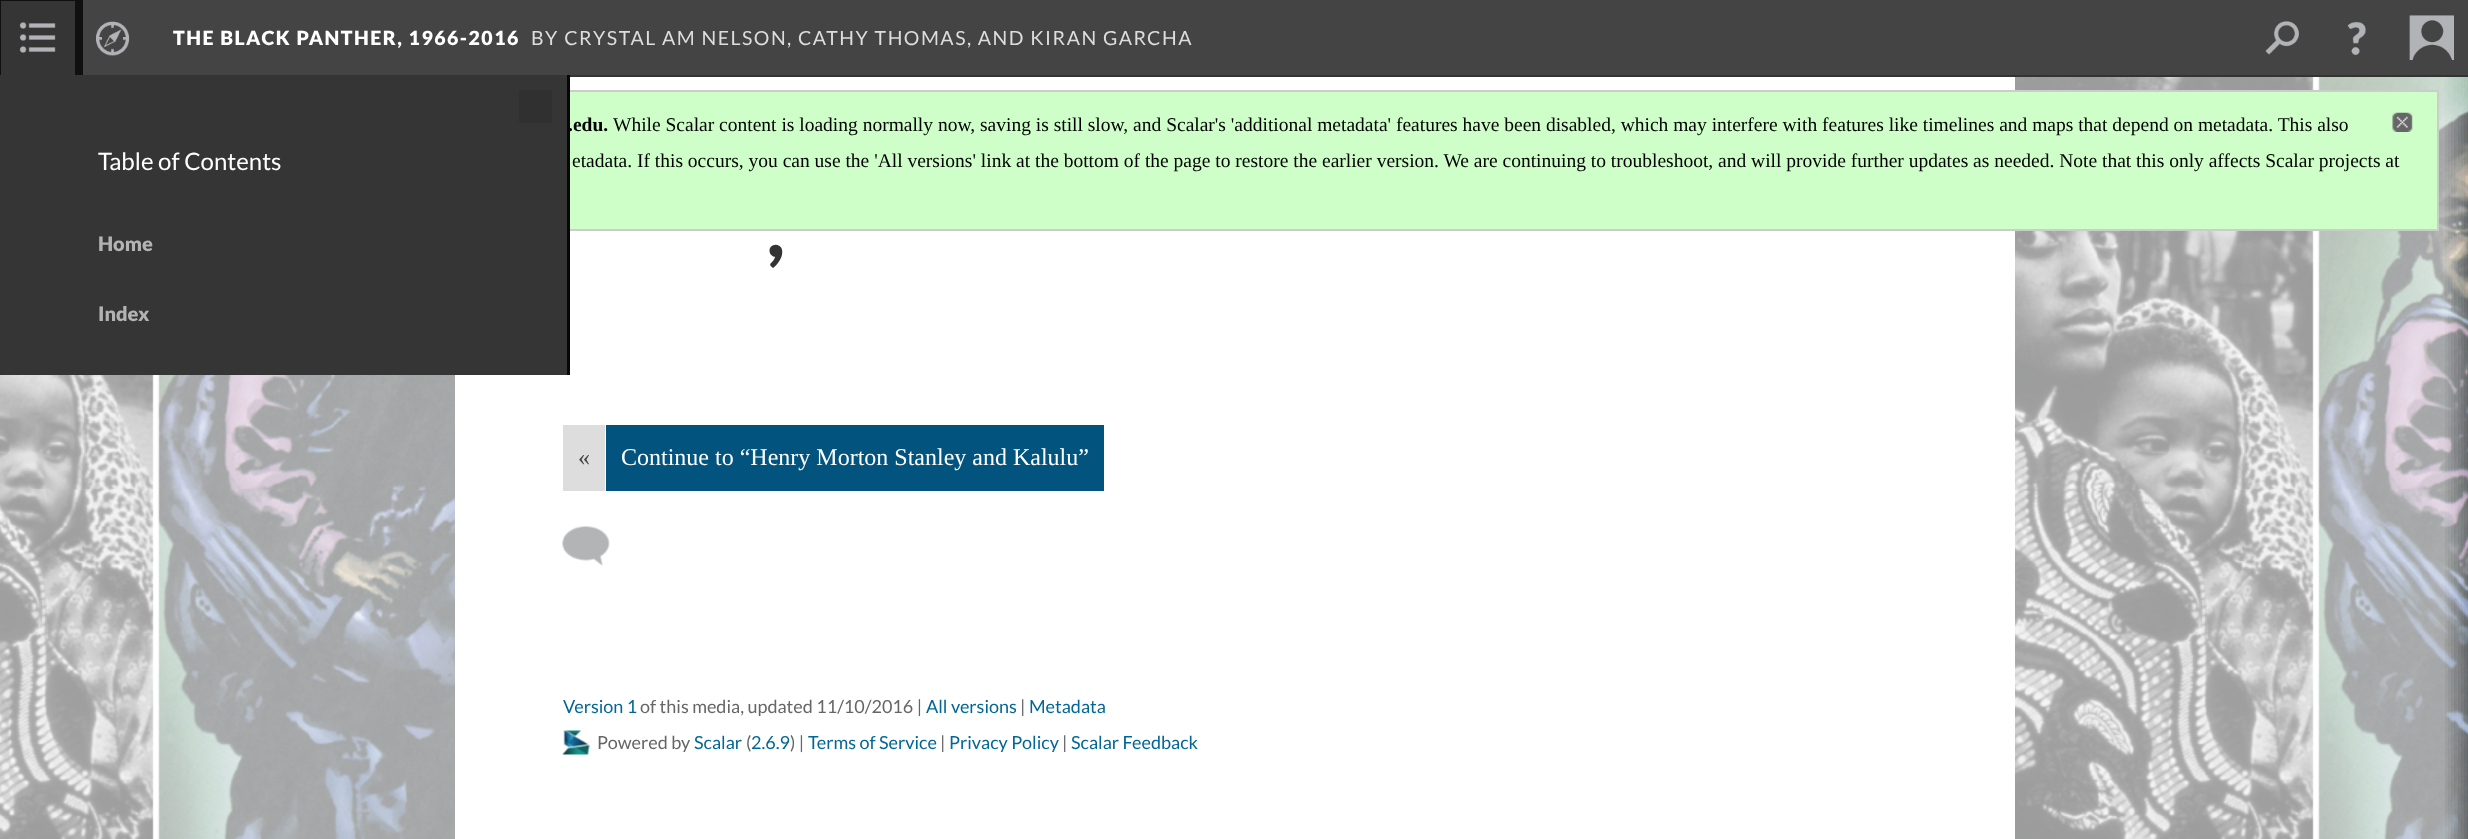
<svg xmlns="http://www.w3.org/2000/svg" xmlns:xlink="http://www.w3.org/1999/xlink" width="2468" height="839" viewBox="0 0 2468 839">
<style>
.cls-1{font:900 19.5px Lato;letter-spacing:1.5px;fill:#ffffff}
.cls-2{font:19.5px Lato;letter-spacing:1.5px;fill:#dddddf}
.cls-3{font:24px Lato;fill:#ffffff}
.cls-4{font:900 20px Lato;fill:#b3b3b3}
.cls-5{font:bold 19.5px Liberation Serif;fill:#000000}
.cls-6{font:19.5px Liberation Serif;fill:#000000}
.cls-7{font:900 74px Lato;fill:#333333}
.cls-8{font:24px Liberation Serif;fill:#444444}
.cls-9{font:24px Liberation Serif;fill:#ffffff}
.cls-10{font:18px Lato;fill:#026697}
.cls-11{font:18px Lato;fill:#666666}
</style>
<defs>
<clipPath id="clip1"><rect x="173" y="0" width="2016" height="75"/></clipPath>
</defs>
<rect width="100%" height="100%" fill="#ffffff"/>
<rect fill="#444444" x="83" y="0" width="2385" height="75"/>
<rect fill="#333333" x="570" y="75" width="1898" height="2"/>
<image xlink:href="image0.png" x="2265" y="21" width="34" height="34"/>
<image xlink:href="image1.png" x="2347" y="21" width="19" height="34"/>
<image xlink:href="image2.png" x="2409" y="15" width="45" height="45"/>
<image xlink:href="image3.png" x="96" y="21" width="34" height="35"/>
<rect fill="#353535" x="1" y="1" width="74" height="74"/>
<image xlink:href="image4.png" x="19" y="22" width="37" height="31"/>
<image xlink:href="image5.png" x="0" y="77" width="2468" height="762"/>
<image xlink:href="image6.png" x="0" y="77" width="2468" height="762"/>
<rect fill="none" stroke="#101010" stroke-width="8" x="-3" y="-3" width="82" height="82"/>
<rect fill="#ffffff" x="455" y="77" width="1560" height="762"/>
<rect fill="#ceffc8" x="570" y="92" width="1867" height="137"/>
<rect fill="none" stroke="#cccccc" stroke-width="2" x="16" y="91" width="2422" height="139"/>
<rect fill="#353535" x="0" y="75" width="567" height="300"/>
<rect fill="#303030" x="519" y="90" width="33" height="33"/>
<image xlink:href="image7.png" x="2392" y="112" width="21" height="20"/>
<rect fill="#dddddd" x="563" y="425" width="42" height="66"/>
<rect fill="#02547e" x="606" y="425" width="498" height="66"/>
<image xlink:href="image8.png" x="562" y="526" width="48" height="40"/>
<image xlink:href="image9.png" x="562" y="730" width="28" height="25"/>
<g clip-path="url(#clip1)">
<text class="cls-1" x="173" y="45">THE BLACK PANTHER, 1966-2016</text>
</g>
<text class="cls-2" x="531" y="45">BY CRYSTAL AM NELSON, CATHY THOMAS, AND KIRAN GARCHA</text>
<text class="cls-3" x="98" y="170">Table of Contents</text>
<text class="cls-4" x="98" y="251">Home</text>
<text class="cls-4" x="98" y="321">Index</text>
<text class="cls-5" x="568" y="131">.edu.</text>
<rect fill="#070707" x="567" y="75" width="3" height="300"/>
<text class="cls-6" x="613" y="131">While Scalar content is loading normally now, saving is still slow, and Scalar's 'additional metadata' features have been disabled, which may interfere with features like timelines and maps that depend on metadata. This also</text>
<text class="cls-6" x="572" y="167">etadata. If this occurs, you can use the 'All versions' link at the bottom of the page to restore the earlier version. We are continuing to troubleshoot, and will provide further updates as needed. Note that this only affects Scalar projects at</text>
<text class="cls-7" x="767" y="257">,</text>
<text class="cls-8" x="578" y="465">«</text>
<text class="cls-9" x="621" y="465">Continue to “Henry Morton Stanley and Kalulu”</text>
<text class="cls-10" x="563" y="713">Version 1</text>
<text class="cls-11" x="640" y="713">of this media, updated 11/10/2016 |</text>
<text class="cls-10" x="926" y="713">All versions</text>
<text class="cls-11" x="1020" y="713">|</text>
<text class="cls-10" x="1029" y="713">Metadata</text>
<text class="cls-11" x="597" y="749">Powered by</text>
<text class="cls-10" x="694" y="749">Scalar</text>
<text class="cls-11" x="746" y="749">(</text>
<text class="cls-10" x="751" y="749">2.6.9</text>
<text class="cls-11" x="790" y="749">) |</text>
<text class="cls-10" x="808" y="749">Terms of Service</text>
<text class="cls-11" x="940" y="749">|</text>
<text class="cls-10" x="949" y="749">Privacy Policy</text>
<text class="cls-11" x="1062" y="749">|</text>
<text class="cls-10" x="1071" y="749">Scalar Feedback</text>
</svg>
